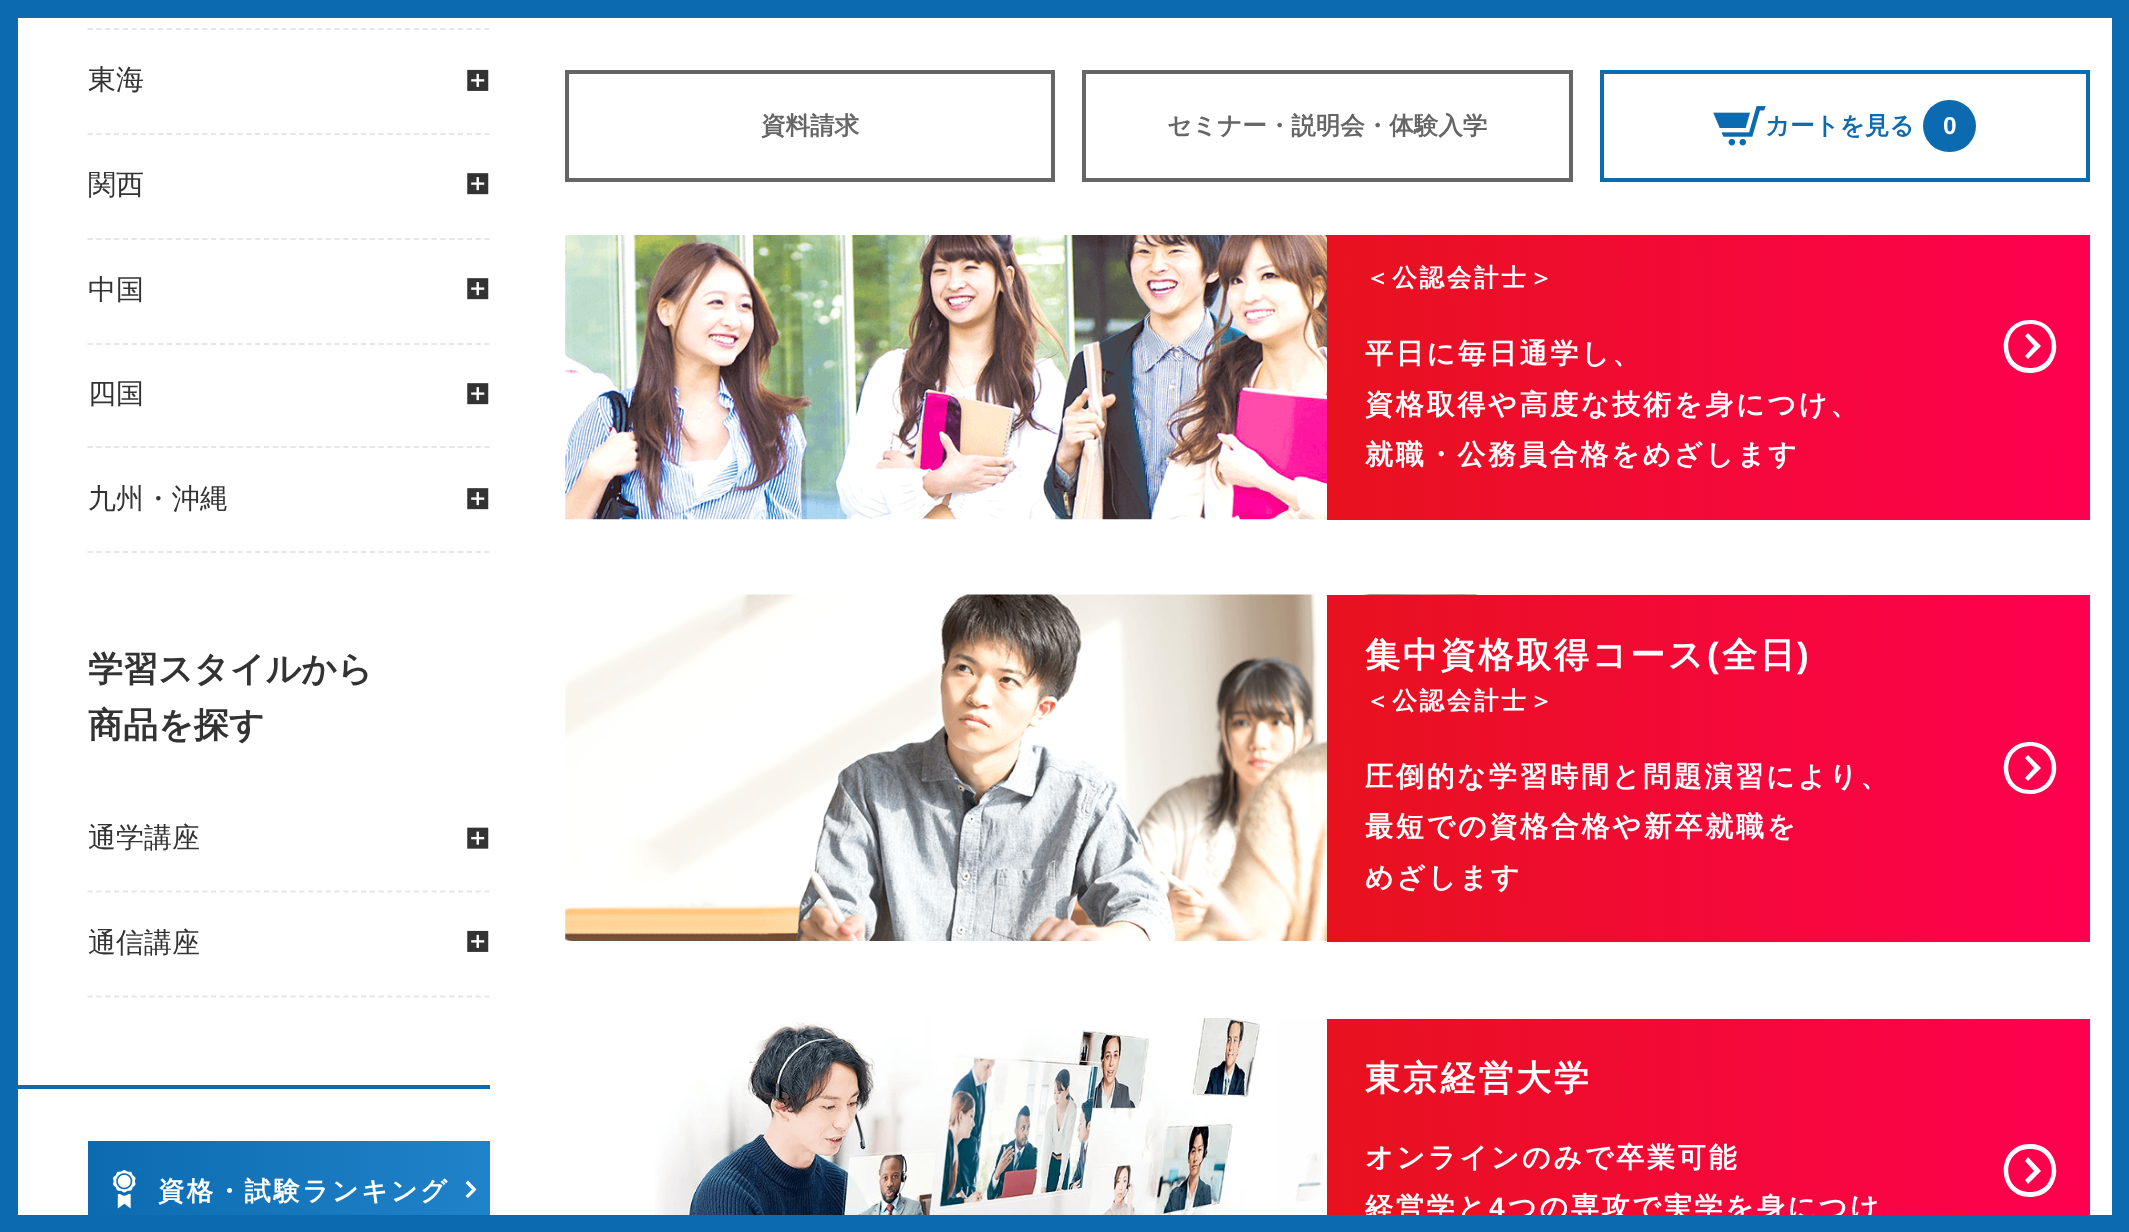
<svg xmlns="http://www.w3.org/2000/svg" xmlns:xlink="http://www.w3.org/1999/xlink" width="2129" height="1232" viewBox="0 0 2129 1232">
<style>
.cls-1{font:500 28px WenQuanYi Zen Hei;fill:#333333}
.cls-2{font:bold 35px WenQuanYi Zen Hei;fill:#333333}
.cls-3{font:bold 26.25px WenQuanYi Zen Hei;letter-spacing:2.6px;fill:#ffffff}
.cls-4{font:bold 24.5px WenQuanYi Zen Hei;letter-spacing:2.75px;fill:#ffffff}
.cls-5{font:bold 28px WenQuanYi Zen Hei;letter-spacing:2.75px;fill:#ffffff}
.cls-6{font:bold 35px WenQuanYi Zen Hei;letter-spacing:2.75px;fill:#ffffff}
.cls-7{font:bold 35px Liberation Sans;letter-spacing:2.75px;fill:#ffffff}
.cls-8{font:bold 28px Liberation Sans;letter-spacing:2.75px;fill:#ffffff}
.cls-9{font:bold 24.5px WenQuanYi Zen Hei;fill:#666666}
.cls-10{font:bold 24.5px WenQuanYi Zen Hei;fill:#0c6bb0}
.cls-11{font:bold 24.5px Liberation Sans;fill:#ffffff}
</style>
<defs>
<linearGradient id="g1" gradientUnits="userSpaceOnUse" x1="88" y1="1191" x2="490" y2="1191"><stop offset="0" stop-color="#0c6bb0"/><stop offset="1" stop-color="#2082c9"/></linearGradient>
<linearGradient id="g2" gradientUnits="userSpaceOnUse" x1="1324" y1="353" x2="2092" y2="340"><stop offset="0" stop-color="#e7121e"/><stop offset="1" stop-color="#ff0050"/></linearGradient>
<linearGradient id="g3" gradientUnits="userSpaceOnUse" x1="1324" y1="775" x2="2092" y2="762"><stop offset="0" stop-color="#e7121e"/><stop offset="1" stop-color="#ff0050"/></linearGradient>
<linearGradient id="g4" gradientUnits="userSpaceOnUse" x1="1324" y1="1177" x2="2092" y2="1164"><stop offset="0" stop-color="#e7121e"/><stop offset="1" stop-color="#ff0050"/></linearGradient>
</defs>
<rect width="100%" height="100%" fill="#ffffff"/>
<rect fill="#0c6bb0" x="18" y="0" width="2094" height="18"/>
<rect fill="#0c6bb0" x="2112" y="0" width="17" height="1232"/>
<rect fill="#0c6bb0" x="0" y="0" width="18" height="1232"/>
<path fill="none" stroke="#e6e6e6" stroke-width="1.8" stroke-dasharray="5.25 3.57" d="M87.5 29H490"/>
<path fill="none" stroke="#e6e6e6" stroke-width="1.8" stroke-dasharray="5.25 3.57" d="M87.5 134H490"/>
<image xlink:href="image0.png" x="467" y="69" width="22" height="22"/>
<path fill="none" stroke="#e6e6e6" stroke-width="1.8" stroke-dasharray="5.25 3.57" d="M87.5 239H490"/>
<image xlink:href="image1.png" x="467" y="173" width="22" height="22"/>
<path fill="none" stroke="#e6e6e6" stroke-width="1.8" stroke-dasharray="5.25 3.57" d="M87.5 344H490"/>
<image xlink:href="image1.png" x="467" y="278" width="22" height="22"/>
<path fill="none" stroke="#e6e6e6" stroke-width="1.8" stroke-dasharray="5.25 3.57" d="M87.5 447H490"/>
<image xlink:href="image1.png" x="467" y="383" width="22" height="22"/>
<path fill="none" stroke="#e6e6e6" stroke-width="1.8" stroke-dasharray="5.25 3.57" d="M87.5 552H490"/>
<image xlink:href="image1.png" x="467" y="488" width="22" height="22"/>
<path fill="none" stroke="#e6e6e6" stroke-width="1.8" stroke-dasharray="5.25 3.57" d="M87.5 891.5H490"/>
<image xlink:href="image2.png" x="467" y="827" width="22" height="22"/>
<path fill="none" stroke="#e6e6e6" stroke-width="1.8" stroke-dasharray="5.25 3.57" d="M87.5 996.5H490"/>
<image xlink:href="image0.png" x="467" y="930" width="22" height="22"/>
<rect fill="#0c6bb0" x="18" y="1085" width="472" height="4"/>
<rect fill="url(#g1)" x="88" y="1141" width="402" height="74"/>
<image xlink:href="image3.png" x="113" y="1170" width="23" height="39"/>
<path fill="#ffffff" d="M465.5 1183L468 1180.5L476.5 1189.5L468 1198L465.5 1196L472 1189.5Z"/>
<image xlink:href="image4.png" x="565" y="235" width="762" height="285"/>
<rect fill="url(#g2)" x="1327" y="235" width="763" height="285"/>
<path fill="#ffffff" d="M2030 324C2059 324 2059 368 2030 368C2001 368 2001 324 2030 324ZM2030 320C1995 320 1995 373 2030 373C2065 373 2065 320 2030 320ZM2034 346L2025 356L2028 359L2041 346L2028 333L2025 336Z"/>
<image xlink:href="image5.png" x="565" y="594" width="912" height="347"/>
<rect fill="url(#g3)" x="1327" y="595" width="763" height="347"/>
<path fill="#ffffff" d="M2030 746C2059 746 2059 790 2030 790C2001 790 2001 746 2030 746ZM2030 742C1995 742 1995 794 2030 794C2065 794 2065 742 2030 742ZM2034 768L2025 778L2028 781L2041 768L2028 755L2025 758Z"/>
<image xlink:href="image6.png" x="655" y="1018" width="702" height="197"/>
<rect fill="url(#g4)" x="1327" y="1019" width="763" height="196"/>
<path fill="#ffffff" d="M2030 1149C2059 1149 2059 1192 2030 1192C2001 1192 2001 1149 2030 1149ZM2030 1144C1995 1144 1995 1197 2030 1197C2065 1197 2065 1144 2030 1144ZM2034 1171L2025 1180L2028 1184L2041 1171L2028 1157L2025 1161Z"/>
<rect fill="none" stroke="#666666" stroke-width="4" x="567" y="72" width="486" height="108"/>
<rect fill="none" stroke="#666666" stroke-width="4" x="1084" y="72" width="487" height="108"/>
<rect fill="none" stroke="#0c6bb0" stroke-width="4" x="1602" y="72" width="486" height="108"/>
<image xlink:href="image7.png" x="1713" y="106" width="53" height="40"/>
<rect fill="#0c6bb0" x="1923" y="100" width="53" height="52" rx="26"/>
<text class="cls-1" x="88" y="89">東海</text>
<text class="cls-1" x="88" y="194">関西</text>
<text class="cls-1" x="88" y="299">中国</text>
<text class="cls-1" x="88" y="403">四国</text>
<text class="cls-1" x="88" y="508">九州・沖縄</text>
<text class="cls-2"><tspan x="88" y="681">学習スタイルから</tspan><tspan x="88" y="737">商品を探す</tspan></text>
<text class="cls-1" x="88" y="847">通学講座</text>
<text class="cls-1" x="88" y="952">通信講座</text>
<text class="cls-3" x="158" y="1200">資格・試験ランキング</text>
<text class="cls-4" x="1365" y="286">＜公認会計士＞</text>
<text class="cls-5"><tspan x="1365" y="363">平日に毎日通学し、</tspan><tspan x="1365" y="414">資格取得や高度な技術を身につけ、</tspan><tspan x="1365" y="464">就職・公務員合格をめざします</tspan></text>
<text class="cls-6" x="1365" y="667">集中資格取得コース</text>
<text class="cls-7" x="1707" y="667">(</text>
<text class="cls-6" x="1722" y="667">全日</text>
<text class="cls-7" x="1797" y="667">)</text>
<text class="cls-4" x="1365" y="709">＜公認会計士＞</text>
<text class="cls-5"><tspan x="1365" y="786">圧倒的な学習時間と問題演習により、</tspan><tspan x="1365" y="836">最短での資格合格や新卒就職を</tspan><tspan x="1365" y="887">めざします</tspan></text>
<text class="cls-6" x="1365" y="1090">東京経営大学</text>
<text class="cls-5"><tspan x="1365" y="1167">オンラインのみで卒業可能</tspan><tspan x="1365" y="1217">経営学と</tspan></text>
<text class="cls-8" x="1489" y="1217">4</text>
<text class="cls-5" x="1508" y="1217">つの専攻で実学を身につけ</text>
<text class="cls-9" x="761" y="134">資料請求</text>
<text class="cls-9" x="1167" y="134">セミナー・説明会・体験入学</text>
<text class="cls-10" x="1765" y="134">カートを見る</text>
<text class="cls-11" x="1943" y="134">0</text>
<rect fill="#0c6bb0" x="18" y="1215" width="2094" height="17"/>
</svg>
